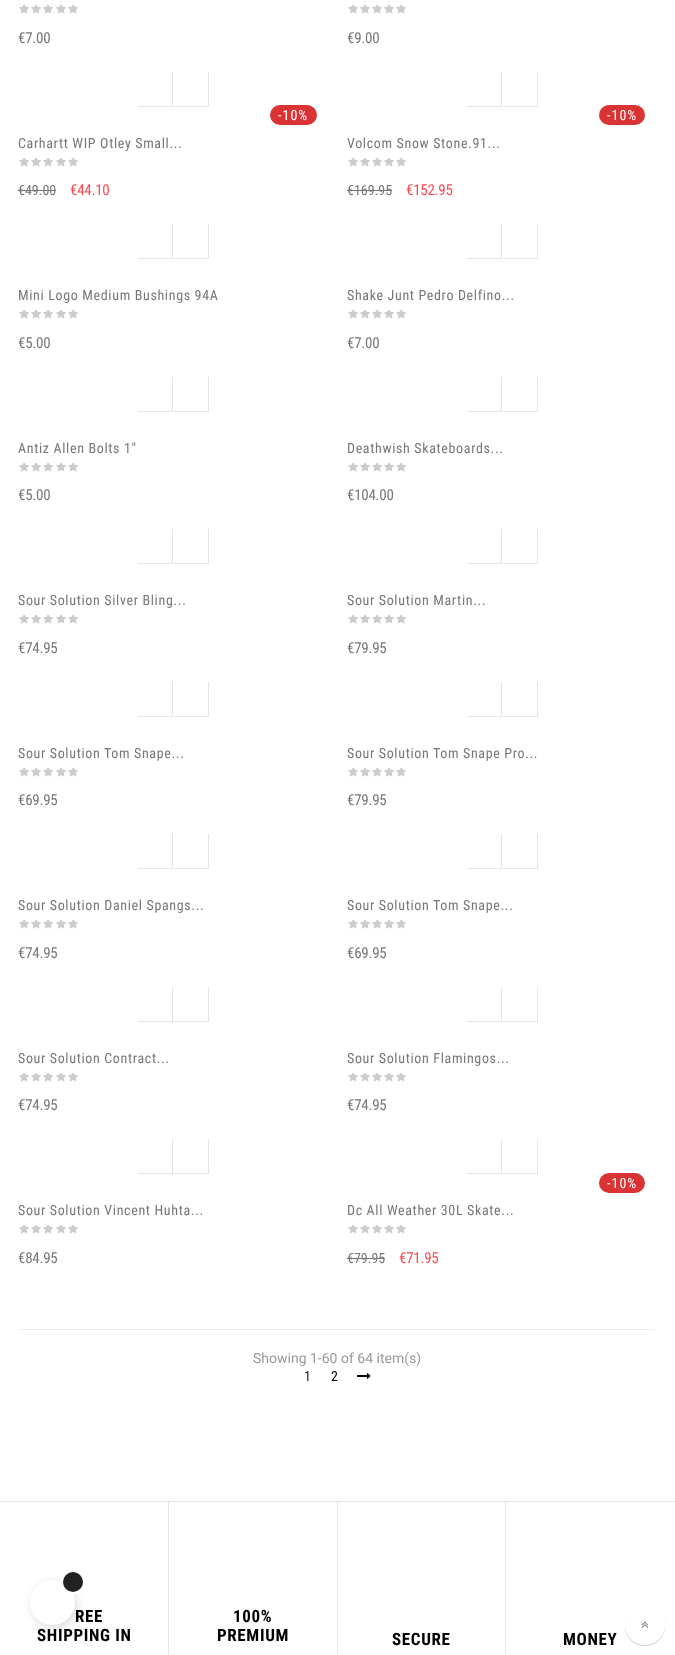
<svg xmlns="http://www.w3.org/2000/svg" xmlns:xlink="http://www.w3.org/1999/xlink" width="675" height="1655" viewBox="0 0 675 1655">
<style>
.cls-1{font:15px Roboto Condensed;letter-spacing:-0.25px;fill:#777777}
.cls-2{font:14px Roboto Condensed;letter-spacing:1px;fill:#ffffff}
.cls-3{font:14px Roboto Condensed;letter-spacing:0.65px;fill:#777777}
.cls-4{font:14px Roboto Condensed;fill:#777777}
.cls-5{font:15px Roboto Condensed;letter-spacing:-0.25px;fill:#ff4850}
.cls-6{font:14px Roboto;fill:#999999}
.cls-7{font:14px Roboto Condensed;fill:#222222}
.cls-8{font:14px Roboto Condensed;fill:#000000}
.cls-9{font:bold 17px Roboto Condensed;letter-spacing:0.65px;fill:#000000}
</style>
<defs>
<clipPath id="clip1"><path d="M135 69H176V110H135ZM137 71H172V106H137Z" clip-rule="evenodd"/></clipPath>
<clipPath id="clip2"><path d="M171 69H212V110H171ZM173 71H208V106H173Z" clip-rule="evenodd"/></clipPath>
<clipPath id="clip3"><path d="M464 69H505V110H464ZM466 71H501V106H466Z" clip-rule="evenodd"/></clipPath>
<clipPath id="clip4"><path d="M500 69H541V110H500ZM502 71H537V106H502Z" clip-rule="evenodd"/></clipPath>
<clipPath id="clip5"><path d="M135 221H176V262H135ZM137 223H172V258H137Z" clip-rule="evenodd"/></clipPath>
<clipPath id="clip6"><path d="M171 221H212V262H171ZM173 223H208V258H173Z" clip-rule="evenodd"/></clipPath>
<clipPath id="clip7"><path d="M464 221H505V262H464ZM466 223H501V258H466Z" clip-rule="evenodd"/></clipPath>
<clipPath id="clip8"><path d="M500 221H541V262H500ZM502 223H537V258H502Z" clip-rule="evenodd"/></clipPath>
<clipPath id="clip9"><path d="M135 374H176V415H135ZM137 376H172V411H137Z" clip-rule="evenodd"/></clipPath>
<clipPath id="clip10"><path d="M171 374H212V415H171ZM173 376H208V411H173Z" clip-rule="evenodd"/></clipPath>
<clipPath id="clip11"><path d="M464 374H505V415H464ZM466 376H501V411H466Z" clip-rule="evenodd"/></clipPath>
<clipPath id="clip12"><path d="M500 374H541V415H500ZM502 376H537V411H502Z" clip-rule="evenodd"/></clipPath>
<clipPath id="clip13"><path d="M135 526H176V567H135ZM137 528H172V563H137Z" clip-rule="evenodd"/></clipPath>
<clipPath id="clip14"><path d="M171 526H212V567H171ZM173 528H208V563H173Z" clip-rule="evenodd"/></clipPath>
<clipPath id="clip15"><path d="M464 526H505V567H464ZM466 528H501V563H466Z" clip-rule="evenodd"/></clipPath>
<clipPath id="clip16"><path d="M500 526H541V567H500ZM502 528H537V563H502Z" clip-rule="evenodd"/></clipPath>
<clipPath id="clip17"><path d="M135 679H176V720H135ZM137 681H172V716H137Z" clip-rule="evenodd"/></clipPath>
<clipPath id="clip18"><path d="M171 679H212V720H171ZM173 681H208V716H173Z" clip-rule="evenodd"/></clipPath>
<clipPath id="clip19"><path d="M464 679H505V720H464ZM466 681H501V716H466Z" clip-rule="evenodd"/></clipPath>
<clipPath id="clip20"><path d="M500 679H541V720H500ZM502 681H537V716H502Z" clip-rule="evenodd"/></clipPath>
<clipPath id="clip21"><path d="M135 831H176V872H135ZM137 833H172V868H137Z" clip-rule="evenodd"/></clipPath>
<clipPath id="clip22"><path d="M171 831H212V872H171ZM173 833H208V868H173Z" clip-rule="evenodd"/></clipPath>
<clipPath id="clip23"><path d="M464 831H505V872H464ZM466 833H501V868H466Z" clip-rule="evenodd"/></clipPath>
<clipPath id="clip24"><path d="M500 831H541V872H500ZM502 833H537V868H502Z" clip-rule="evenodd"/></clipPath>
<clipPath id="clip25"><path d="M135 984H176V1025H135ZM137 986H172V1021H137Z" clip-rule="evenodd"/></clipPath>
<clipPath id="clip26"><path d="M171 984H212V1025H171ZM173 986H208V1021H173Z" clip-rule="evenodd"/></clipPath>
<clipPath id="clip27"><path d="M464 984H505V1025H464ZM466 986H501V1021H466Z" clip-rule="evenodd"/></clipPath>
<clipPath id="clip28"><path d="M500 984H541V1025H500ZM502 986H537V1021H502Z" clip-rule="evenodd"/></clipPath>
<clipPath id="clip29"><path d="M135 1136H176V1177H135ZM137 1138H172V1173H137Z" clip-rule="evenodd"/></clipPath>
<clipPath id="clip30"><path d="M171 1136H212V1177H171ZM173 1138H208V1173H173Z" clip-rule="evenodd"/></clipPath>
<clipPath id="clip31"><path d="M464 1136H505V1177H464ZM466 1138H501V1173H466Z" clip-rule="evenodd"/></clipPath>
<clipPath id="clip32"><path d="M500 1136H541V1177H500ZM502 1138H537V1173H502Z" clip-rule="evenodd"/></clipPath>
</defs>
<rect width="100%" height="100%" fill="#ffffff"/>
<image xlink:href="image0.png" x="19" y="5" width="10" height="9"/>
<image xlink:href="image0.png" x="31" y="5" width="10" height="9"/>
<image xlink:href="image0.png" x="43" y="5" width="10" height="9"/>
<image xlink:href="image0.png" x="56" y="5" width="10" height="9"/>
<image xlink:href="image0.png" x="68" y="5" width="10" height="9"/>
<image xlink:href="image0.png" x="348" y="5" width="10" height="9"/>
<image xlink:href="image0.png" x="360" y="5" width="10" height="9"/>
<image xlink:href="image0.png" x="372" y="5" width="10" height="9"/>
<image xlink:href="image0.png" x="384" y="5" width="10" height="9"/>
<image xlink:href="image0.png" x="396" y="5" width="10" height="9"/>
<g clip-path="url(#clip1)">
<rect fill="#000000" fill-opacity="0.1" filter="blur(0.5px)" x="138" y="72" width="35" height="35"/>
</g>
<g clip-path="url(#clip2)">
<rect fill="#000000" fill-opacity="0.1" filter="blur(0.5px)" x="174" y="72" width="35" height="35"/>
</g>
<rect fill="#d93333" x="270" y="105" width="47" height="20" rx="10"/>
<image xlink:href="image0.png" x="19" y="158" width="10" height="9"/>
<image xlink:href="image0.png" x="31" y="158" width="10" height="9"/>
<image xlink:href="image0.png" x="43" y="158" width="10" height="9"/>
<image xlink:href="image0.png" x="56" y="158" width="10" height="9"/>
<image xlink:href="image0.png" x="68" y="158" width="10" height="9"/>
<rect fill="#777777" x="18" y="190" width="38" height="1"/>
<g clip-path="url(#clip3)">
<rect fill="#000000" fill-opacity="0.1" filter="blur(0.5px)" x="467" y="72" width="35" height="35"/>
</g>
<g clip-path="url(#clip4)">
<rect fill="#000000" fill-opacity="0.1" filter="blur(0.5px)" x="503" y="72" width="35" height="35"/>
</g>
<rect fill="#d93333" x="599" y="105" width="46" height="20" rx="10"/>
<image xlink:href="image0.png" x="348" y="158" width="10" height="9"/>
<image xlink:href="image0.png" x="360" y="158" width="10" height="9"/>
<image xlink:href="image0.png" x="372" y="158" width="10" height="9"/>
<image xlink:href="image0.png" x="384" y="158" width="10" height="9"/>
<image xlink:href="image0.png" x="396" y="158" width="10" height="9"/>
<rect fill="#777777" x="347" y="190" width="45" height="1"/>
<g clip-path="url(#clip5)">
<rect fill="#000000" fill-opacity="0.1" filter="blur(0.5px)" x="138" y="224" width="35" height="35"/>
</g>
<g clip-path="url(#clip6)">
<rect fill="#000000" fill-opacity="0.1" filter="blur(0.5px)" x="174" y="224" width="35" height="35"/>
</g>
<image xlink:href="image0.png" x="19" y="310" width="10" height="9"/>
<image xlink:href="image0.png" x="31" y="310" width="10" height="9"/>
<image xlink:href="image0.png" x="43" y="310" width="10" height="9"/>
<image xlink:href="image0.png" x="56" y="310" width="10" height="9"/>
<image xlink:href="image0.png" x="68" y="310" width="10" height="9"/>
<g clip-path="url(#clip7)">
<rect fill="#000000" fill-opacity="0.1" filter="blur(0.5px)" x="467" y="224" width="35" height="35"/>
</g>
<g clip-path="url(#clip8)">
<rect fill="#000000" fill-opacity="0.1" filter="blur(0.5px)" x="503" y="224" width="35" height="35"/>
</g>
<image xlink:href="image0.png" x="348" y="310" width="10" height="9"/>
<image xlink:href="image0.png" x="360" y="310" width="10" height="9"/>
<image xlink:href="image0.png" x="372" y="310" width="10" height="9"/>
<image xlink:href="image0.png" x="384" y="310" width="10" height="9"/>
<image xlink:href="image0.png" x="396" y="310" width="10" height="9"/>
<g clip-path="url(#clip9)">
<rect fill="#000000" fill-opacity="0.1" filter="blur(0.5px)" x="138" y="377" width="35" height="35"/>
</g>
<g clip-path="url(#clip10)">
<rect fill="#000000" fill-opacity="0.1" filter="blur(0.5px)" x="174" y="377" width="35" height="35"/>
</g>
<image xlink:href="image0.png" x="19" y="463" width="10" height="9"/>
<image xlink:href="image0.png" x="31" y="463" width="10" height="9"/>
<image xlink:href="image0.png" x="43" y="463" width="10" height="9"/>
<image xlink:href="image0.png" x="56" y="463" width="10" height="9"/>
<image xlink:href="image0.png" x="68" y="463" width="10" height="9"/>
<g clip-path="url(#clip11)">
<rect fill="#000000" fill-opacity="0.1" filter="blur(0.5px)" x="467" y="377" width="35" height="35"/>
</g>
<g clip-path="url(#clip12)">
<rect fill="#000000" fill-opacity="0.1" filter="blur(0.5px)" x="503" y="377" width="35" height="35"/>
</g>
<image xlink:href="image0.png" x="348" y="463" width="10" height="9"/>
<image xlink:href="image0.png" x="360" y="463" width="10" height="9"/>
<image xlink:href="image0.png" x="372" y="463" width="10" height="9"/>
<image xlink:href="image0.png" x="384" y="463" width="10" height="9"/>
<image xlink:href="image0.png" x="396" y="463" width="10" height="9"/>
<g clip-path="url(#clip13)">
<rect fill="#000000" fill-opacity="0.1" filter="blur(0.5px)" x="138" y="529" width="35" height="35"/>
</g>
<g clip-path="url(#clip14)">
<rect fill="#000000" fill-opacity="0.1" filter="blur(0.5px)" x="174" y="529" width="35" height="35"/>
</g>
<image xlink:href="image0.png" x="19" y="615" width="10" height="9"/>
<image xlink:href="image0.png" x="31" y="615" width="10" height="9"/>
<image xlink:href="image0.png" x="43" y="615" width="10" height="9"/>
<image xlink:href="image0.png" x="56" y="615" width="10" height="9"/>
<image xlink:href="image0.png" x="68" y="615" width="10" height="9"/>
<g clip-path="url(#clip15)">
<rect fill="#000000" fill-opacity="0.1" filter="blur(0.5px)" x="467" y="529" width="35" height="35"/>
</g>
<g clip-path="url(#clip16)">
<rect fill="#000000" fill-opacity="0.1" filter="blur(0.5px)" x="503" y="529" width="35" height="35"/>
</g>
<image xlink:href="image0.png" x="348" y="615" width="10" height="9"/>
<image xlink:href="image0.png" x="360" y="615" width="10" height="9"/>
<image xlink:href="image0.png" x="372" y="615" width="10" height="9"/>
<image xlink:href="image0.png" x="384" y="615" width="10" height="9"/>
<image xlink:href="image0.png" x="396" y="615" width="10" height="9"/>
<g clip-path="url(#clip17)">
<rect fill="#000000" fill-opacity="0.1" filter="blur(0.5px)" x="138" y="682" width="35" height="35"/>
</g>
<g clip-path="url(#clip18)">
<rect fill="#000000" fill-opacity="0.1" filter="blur(0.5px)" x="174" y="682" width="35" height="35"/>
</g>
<image xlink:href="image0.png" x="19" y="768" width="10" height="9"/>
<image xlink:href="image0.png" x="31" y="768" width="10" height="9"/>
<image xlink:href="image0.png" x="43" y="768" width="10" height="9"/>
<image xlink:href="image0.png" x="56" y="768" width="10" height="9"/>
<image xlink:href="image0.png" x="68" y="768" width="10" height="9"/>
<g clip-path="url(#clip19)">
<rect fill="#000000" fill-opacity="0.1" filter="blur(0.5px)" x="467" y="682" width="35" height="35"/>
</g>
<g clip-path="url(#clip20)">
<rect fill="#000000" fill-opacity="0.1" filter="blur(0.5px)" x="503" y="682" width="35" height="35"/>
</g>
<image xlink:href="image0.png" x="348" y="768" width="10" height="9"/>
<image xlink:href="image0.png" x="360" y="768" width="10" height="9"/>
<image xlink:href="image0.png" x="372" y="768" width="10" height="9"/>
<image xlink:href="image0.png" x="384" y="768" width="10" height="9"/>
<image xlink:href="image0.png" x="396" y="768" width="10" height="9"/>
<g clip-path="url(#clip21)">
<rect fill="#000000" fill-opacity="0.1" filter="blur(0.5px)" x="138" y="834" width="35" height="35"/>
</g>
<g clip-path="url(#clip22)">
<rect fill="#000000" fill-opacity="0.1" filter="blur(0.5px)" x="174" y="834" width="35" height="35"/>
</g>
<image xlink:href="image0.png" x="19" y="920" width="10" height="9"/>
<image xlink:href="image0.png" x="31" y="920" width="10" height="9"/>
<image xlink:href="image0.png" x="43" y="920" width="10" height="9"/>
<image xlink:href="image0.png" x="56" y="920" width="10" height="9"/>
<image xlink:href="image0.png" x="68" y="920" width="10" height="9"/>
<g clip-path="url(#clip23)">
<rect fill="#000000" fill-opacity="0.1" filter="blur(0.5px)" x="467" y="834" width="35" height="35"/>
</g>
<g clip-path="url(#clip24)">
<rect fill="#000000" fill-opacity="0.1" filter="blur(0.5px)" x="503" y="834" width="35" height="35"/>
</g>
<image xlink:href="image0.png" x="348" y="920" width="10" height="9"/>
<image xlink:href="image0.png" x="360" y="920" width="10" height="9"/>
<image xlink:href="image0.png" x="372" y="920" width="10" height="9"/>
<image xlink:href="image0.png" x="384" y="920" width="10" height="9"/>
<image xlink:href="image0.png" x="396" y="920" width="10" height="9"/>
<g clip-path="url(#clip25)">
<rect fill="#000000" fill-opacity="0.1" filter="blur(0.5px)" x="138" y="987" width="35" height="35"/>
</g>
<g clip-path="url(#clip26)">
<rect fill="#000000" fill-opacity="0.1" filter="blur(0.5px)" x="174" y="987" width="35" height="35"/>
</g>
<image xlink:href="image0.png" x="19" y="1073" width="10" height="9"/>
<image xlink:href="image0.png" x="31" y="1073" width="10" height="9"/>
<image xlink:href="image0.png" x="43" y="1073" width="10" height="9"/>
<image xlink:href="image0.png" x="56" y="1073" width="10" height="9"/>
<image xlink:href="image0.png" x="68" y="1073" width="10" height="9"/>
<g clip-path="url(#clip27)">
<rect fill="#000000" fill-opacity="0.1" filter="blur(0.5px)" x="467" y="987" width="35" height="35"/>
</g>
<g clip-path="url(#clip28)">
<rect fill="#000000" fill-opacity="0.1" filter="blur(0.5px)" x="503" y="987" width="35" height="35"/>
</g>
<image xlink:href="image0.png" x="348" y="1073" width="10" height="9"/>
<image xlink:href="image0.png" x="360" y="1073" width="10" height="9"/>
<image xlink:href="image0.png" x="372" y="1073" width="10" height="9"/>
<image xlink:href="image0.png" x="384" y="1073" width="10" height="9"/>
<image xlink:href="image0.png" x="396" y="1073" width="10" height="9"/>
<g clip-path="url(#clip29)">
<rect fill="#000000" fill-opacity="0.1" filter="blur(0.5px)" x="138" y="1139" width="35" height="35"/>
</g>
<g clip-path="url(#clip30)">
<rect fill="#000000" fill-opacity="0.1" filter="blur(0.5px)" x="174" y="1139" width="35" height="35"/>
</g>
<image xlink:href="image0.png" x="19" y="1225" width="10" height="9"/>
<image xlink:href="image0.png" x="31" y="1225" width="10" height="9"/>
<image xlink:href="image0.png" x="43" y="1225" width="10" height="9"/>
<image xlink:href="image0.png" x="56" y="1225" width="10" height="9"/>
<image xlink:href="image0.png" x="68" y="1225" width="10" height="9"/>
<g clip-path="url(#clip31)">
<rect fill="#000000" fill-opacity="0.1" filter="blur(0.5px)" x="467" y="1139" width="35" height="35"/>
</g>
<g clip-path="url(#clip32)">
<rect fill="#000000" fill-opacity="0.1" filter="blur(0.5px)" x="503" y="1139" width="35" height="35"/>
</g>
<rect fill="#d93333" x="599" y="1173" width="46" height="20" rx="10"/>
<image xlink:href="image0.png" x="348" y="1225" width="10" height="9"/>
<image xlink:href="image0.png" x="360" y="1225" width="10" height="9"/>
<image xlink:href="image0.png" x="372" y="1225" width="10" height="9"/>
<image xlink:href="image0.png" x="384" y="1225" width="10" height="9"/>
<image xlink:href="image0.png" x="396" y="1225" width="10" height="9"/>
<rect fill="#777777" x="347" y="1258" width="38" height="1"/>
<rect fill="#eeeeee" x="20" y="1329" width="635" height="1"/>
<image xlink:href="image1.png" x="357" y="1373" width="14" height="6"/>
<rect fill="#e5e5e5" x="0" y="1501" width="675" height="1"/>
<rect fill="#e5e5e5" x="168" y="1502" width="1" height="153"/>
<rect fill="#e5e5e5" x="337" y="1502" width="1" height="153"/>
<rect fill="#e5e5e5" x="505" y="1502" width="1" height="153"/>
<rect fill="#000000" fill-opacity="0.2" filter="blur(0.5px)" x="625" y="1606" width="40" height="40" rx="20"/>
<circle fill="#ffffff" cx="645" cy="1625" r="20"/>
<image xlink:href="image2.png" x="641" y="1621" width="8" height="7"/>
<rect fill="#000000" fill-opacity="0.15" filter="blur(5px)" x="32" y="1583" width="45" height="45" rx="22.5"/>
<circle fill="#ffffff" cx="52.5" cy="1602.5" r="22.5"/>
<circle fill="none" stroke="#ffffff" stroke-width="2" cx="73" cy="1582" r="11"/>
<circle fill="#222222" cx="73" cy="1582" r="10"/>
<text class="cls-1" x="18" y="43">€7.00</text>
<text class="cls-1" x="347" y="43">€9.00</text>
<text class="cls-2" x="278" y="120">-10%</text>
<text class="cls-3" x="18" y="148">Carhartt WIP Otley Small...</text>
<text class="cls-4" x="18" y="195">€49.00</text>
<text class="cls-5" x="70" y="195">€44.10</text>
<text class="cls-2" x="607" y="120">-10%</text>
<text class="cls-3" x="347" y="148">Volcom Snow Stone.91...</text>
<text class="cls-4" x="347" y="195">€169.95</text>
<text class="cls-5" x="406" y="195">€152.95</text>
<text class="cls-3" x="18" y="300">Mini Logo Medium Bushings 94A</text>
<text class="cls-1" x="18" y="348">€5.00</text>
<text class="cls-3" x="347" y="300">Shake Junt Pedro Delfino...</text>
<text class="cls-1" x="347" y="348">€7.00</text>
<text class="cls-3" x="18" y="453">Antiz Allen Bolts 1"</text>
<text class="cls-1" x="18" y="500">€5.00</text>
<text class="cls-3" x="347" y="453">Deathwish Skateboards...</text>
<text class="cls-1" x="347" y="500">€104.00</text>
<text class="cls-3" x="18" y="605">Sour Solution Silver Bling...</text>
<text class="cls-1" x="18" y="653">€74.95</text>
<text class="cls-3" x="347" y="605">Sour Solution Martin...</text>
<text class="cls-1" x="347" y="653">€79.95</text>
<text class="cls-3" x="18" y="758">Sour Solution Tom Snape...</text>
<text class="cls-1" x="18" y="805">€69.95</text>
<text class="cls-3" x="347" y="758">Sour Solution Tom Snape Pro...</text>
<text class="cls-1" x="347" y="805">€79.95</text>
<text class="cls-3" x="18" y="910">Sour Solution Daniel Spangs...</text>
<text class="cls-1" x="18" y="958">€74.95</text>
<text class="cls-3" x="347" y="910">Sour Solution Tom Snape...</text>
<text class="cls-1" x="347" y="958">€69.95</text>
<text class="cls-3" x="18" y="1063">Sour Solution Contract...</text>
<text class="cls-1" x="18" y="1110">€74.95</text>
<text class="cls-3" x="347" y="1063">Sour Solution Flamingos...</text>
<text class="cls-1" x="347" y="1110">€74.95</text>
<text class="cls-3" x="18" y="1215">Sour Solution Vincent Huhta...</text>
<text class="cls-1" x="18" y="1263">€84.95</text>
<text class="cls-2" x="607" y="1188">-10%</text>
<text class="cls-3" x="347" y="1215">Dc All Weather 30L Skate...</text>
<text class="cls-4" x="347" y="1263">€79.95</text>
<text class="cls-5" x="399" y="1263">€71.95</text>
<text class="cls-6" x="253" y="1363">Showing 1-60 of 64 item(s)</text>
<text class="cls-7" x="304" y="1381">1</text>
<text class="cls-8" x="331" y="1381">2</text>
<text class="cls-9" x="75" y="1622">REE</text>
<text class="cls-9" x="37" y="1641">SHIPPING IN</text>
<text class="cls-9" x="233" y="1622">100%</text>
<text class="cls-9" x="217" y="1641">PREMIUM</text>
<text class="cls-9" x="392" y="1645">SECURE</text>
<text class="cls-9" x="563" y="1645">MONEY</text>
</svg>
